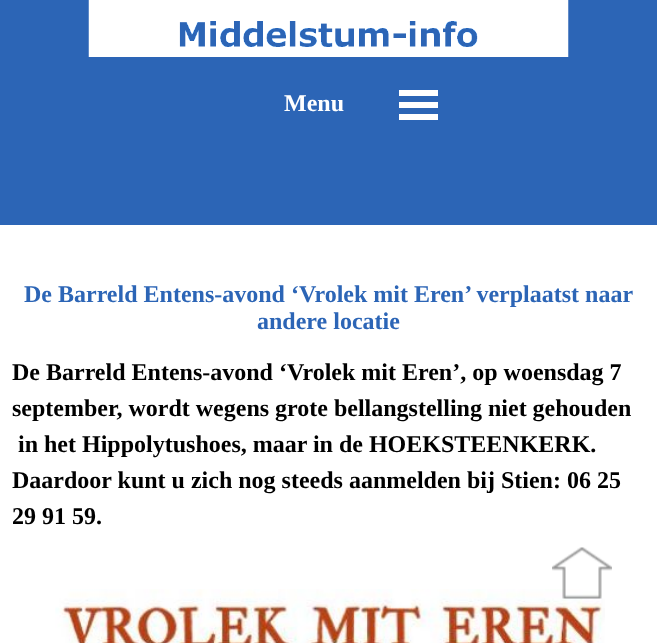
<svg xmlns="http://www.w3.org/2000/svg" xmlns:xlink="http://www.w3.org/1999/xlink" width="657" height="643" viewBox="0 0 657 643">
<style>
.cls-1{font:bold 24px Liberation Serif;fill:#ffffff}
.cls-2{font:bold 24px Liberation Serif;fill:#2c65b6}
.cls-3{font:bold 24px Liberation Serif;fill:#000000}
</style>
<rect width="100%" height="100%" fill="#2c65b6"/>
<image xlink:href="image0.png" x="88" y="0" width="481" height="57"/>
<rect fill="#ffffff" x="399" y="90" width="39" height="6"/>
<rect fill="#ffffff" x="399" y="102" width="39" height="6"/>
<rect fill="#ffffff" x="399" y="114" width="39" height="6"/>
<rect fill="#ffffff" x="0" y="225" width="657" height="418"/>
<image xlink:href="image1.png" x="55" y="589" width="550" height="54"/>
<image xlink:href="image2.png" x="552" y="547" width="60" height="52"/>
<text class="cls-1" x="284" y="111">Menu</text>
<text class="cls-2" x="24" y="302">De Barreld Entens-avond ‘Vrolek mit Eren’ verplaatst naar</text>
<text class="cls-2" x="257" y="329">andere locatie</text>
<text class="cls-3"><tspan x="12" y="380">De Barreld Entens-avond ‘Vrolek mit Eren’, op woensdag 7</tspan><tspan x="12" y="416">september, wordt wegens grote bellangstelling niet gehouden</tspan></text>
<text class="cls-3" x="18" y="452">in het Hippolytushoes, maar in de HOEKSTEENKERK.</text>
<text class="cls-3"><tspan x="12" y="488">Daardoor kunt u zich nog steeds aanmelden bij Stien: 06 25</tspan><tspan x="12" y="524">29 91 59.</tspan></text>
</svg>
